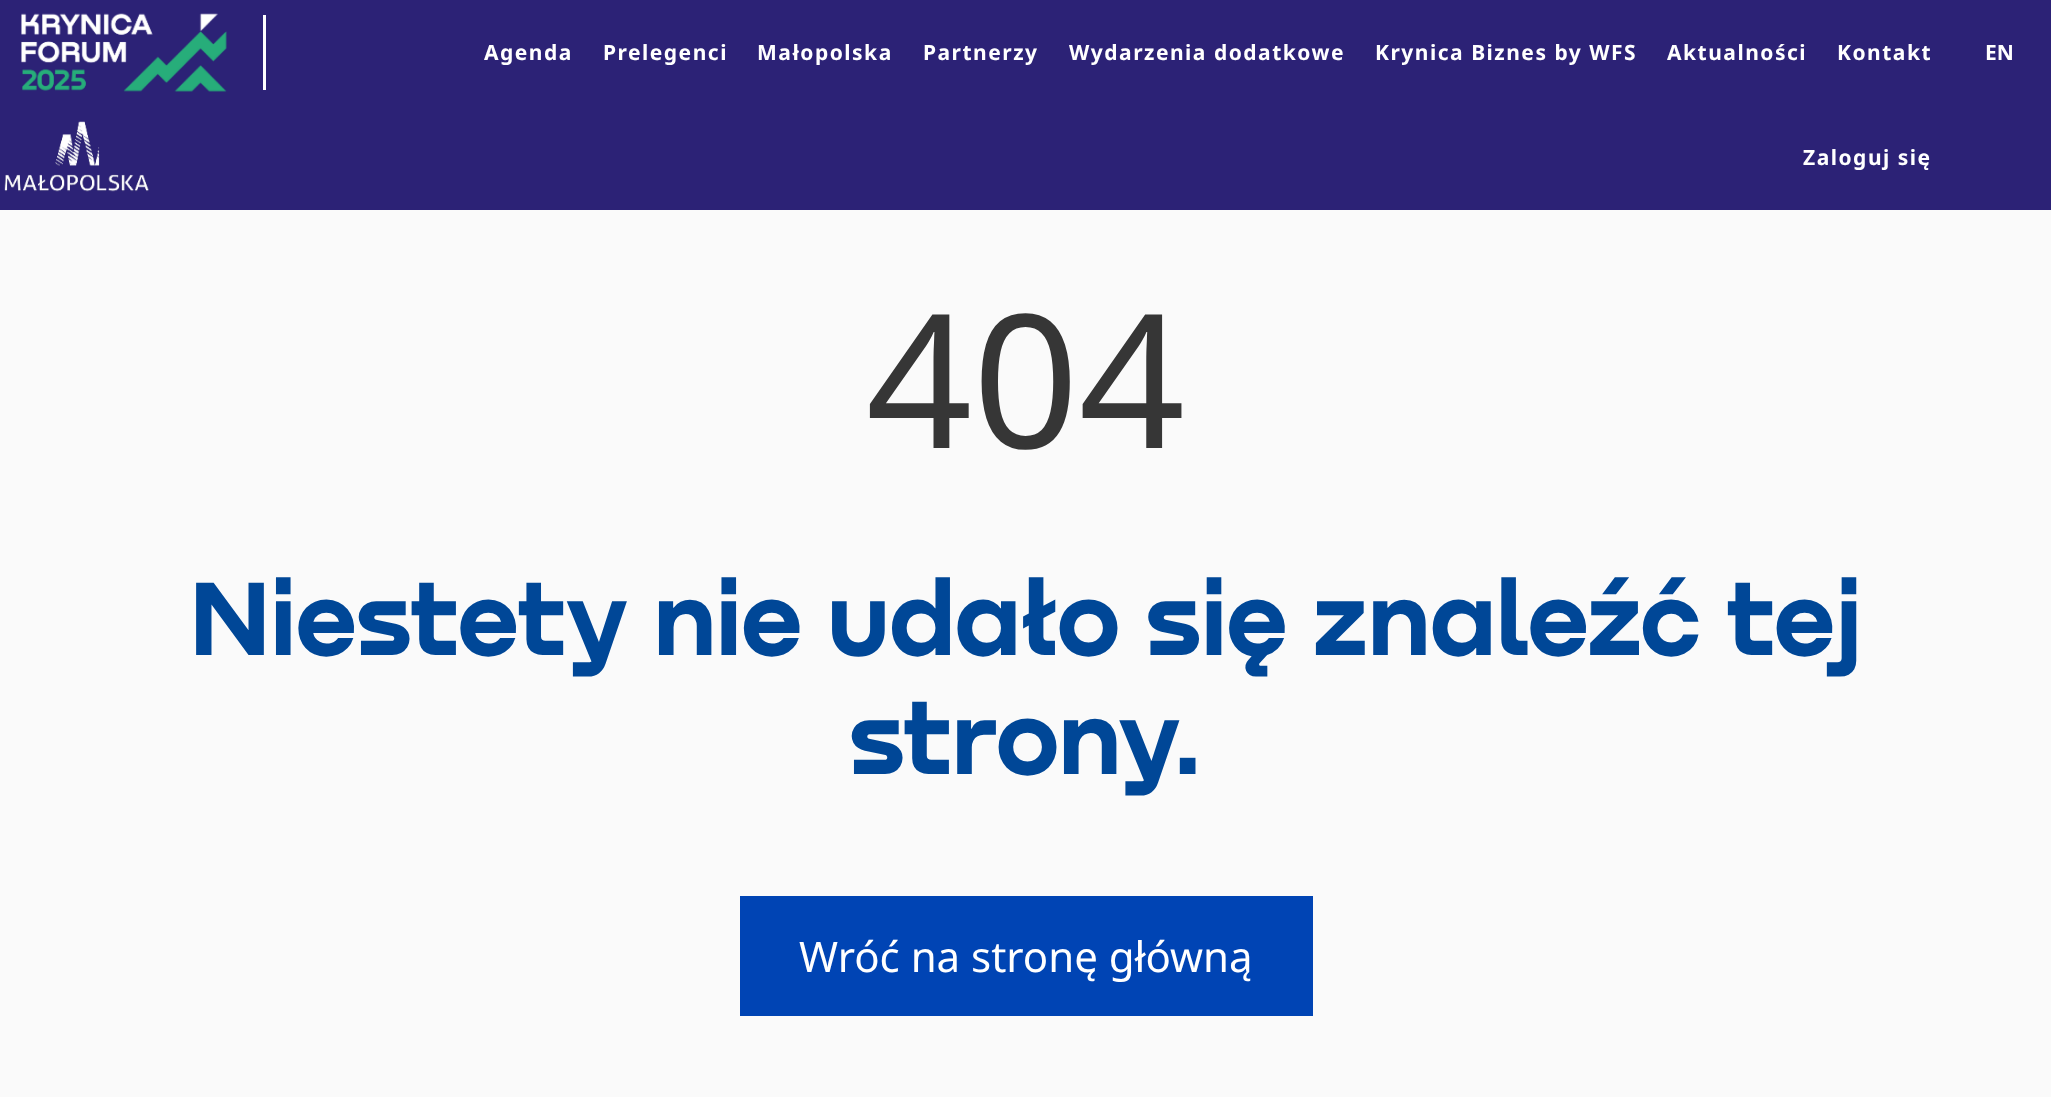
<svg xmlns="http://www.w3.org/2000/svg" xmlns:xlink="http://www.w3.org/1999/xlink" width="2051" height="1097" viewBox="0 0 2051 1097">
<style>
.cls-1{font:bold 21px Noto Sans;letter-spacing:1.5px;fill:#ffffff}
.cls-2{font:bold 21px Noto Sans;fill:#ffffff}
.cls-3{font:186px Noto Sans;fill:#363636}
.cls-4{font:bold 108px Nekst;fill:#004797}
.cls-5{font:42px Noto Sans;fill:#ffffff}
</style>
<rect width="100%" height="100%" fill="#fafafa"/>
<rect fill="#2c2276" x="0" y="0" width="2051" height="210"/>
<image xlink:href="image0.png" x="21" y="13" width="206" height="79"/>
<rect fill="#ffffff" x="263" y="15" width="3" height="75"/>
<image xlink:href="image1.png" x="4" y="121" width="145" height="71"/>
<rect fill="#0044b4" x="740" y="896" width="573" height="120"/>
<text class="cls-1" x="484" y="60">Agenda</text>
<text class="cls-1" x="603" y="60">Prelegenci</text>
<text class="cls-1" x="757" y="60">Małopolska</text>
<text class="cls-1" x="923" y="60">Partnerzy</text>
<text class="cls-1" x="1069" y="60">Wydarzenia dodatkowe</text>
<text class="cls-1" x="1375" y="60">Krynica Biznes by WFS</text>
<text class="cls-1" x="1667" y="60">Aktualności</text>
<text class="cls-1" x="1837" y="60">Kontakt</text>
<text class="cls-1" x="1803" y="165">Zaloguj się</text>
<text class="cls-2" x="1985" y="60">EN</text>
<text class="cls-3" x="866" y="448">404</text>
<text class="cls-4" x="189" y="655">Niestety nie udało się znaleźć tej</text>
<text class="cls-4" x="849" y="774">strony.</text>
<text class="cls-5" x="799" y="972">Wróć na stronę główną</text>
</svg>
